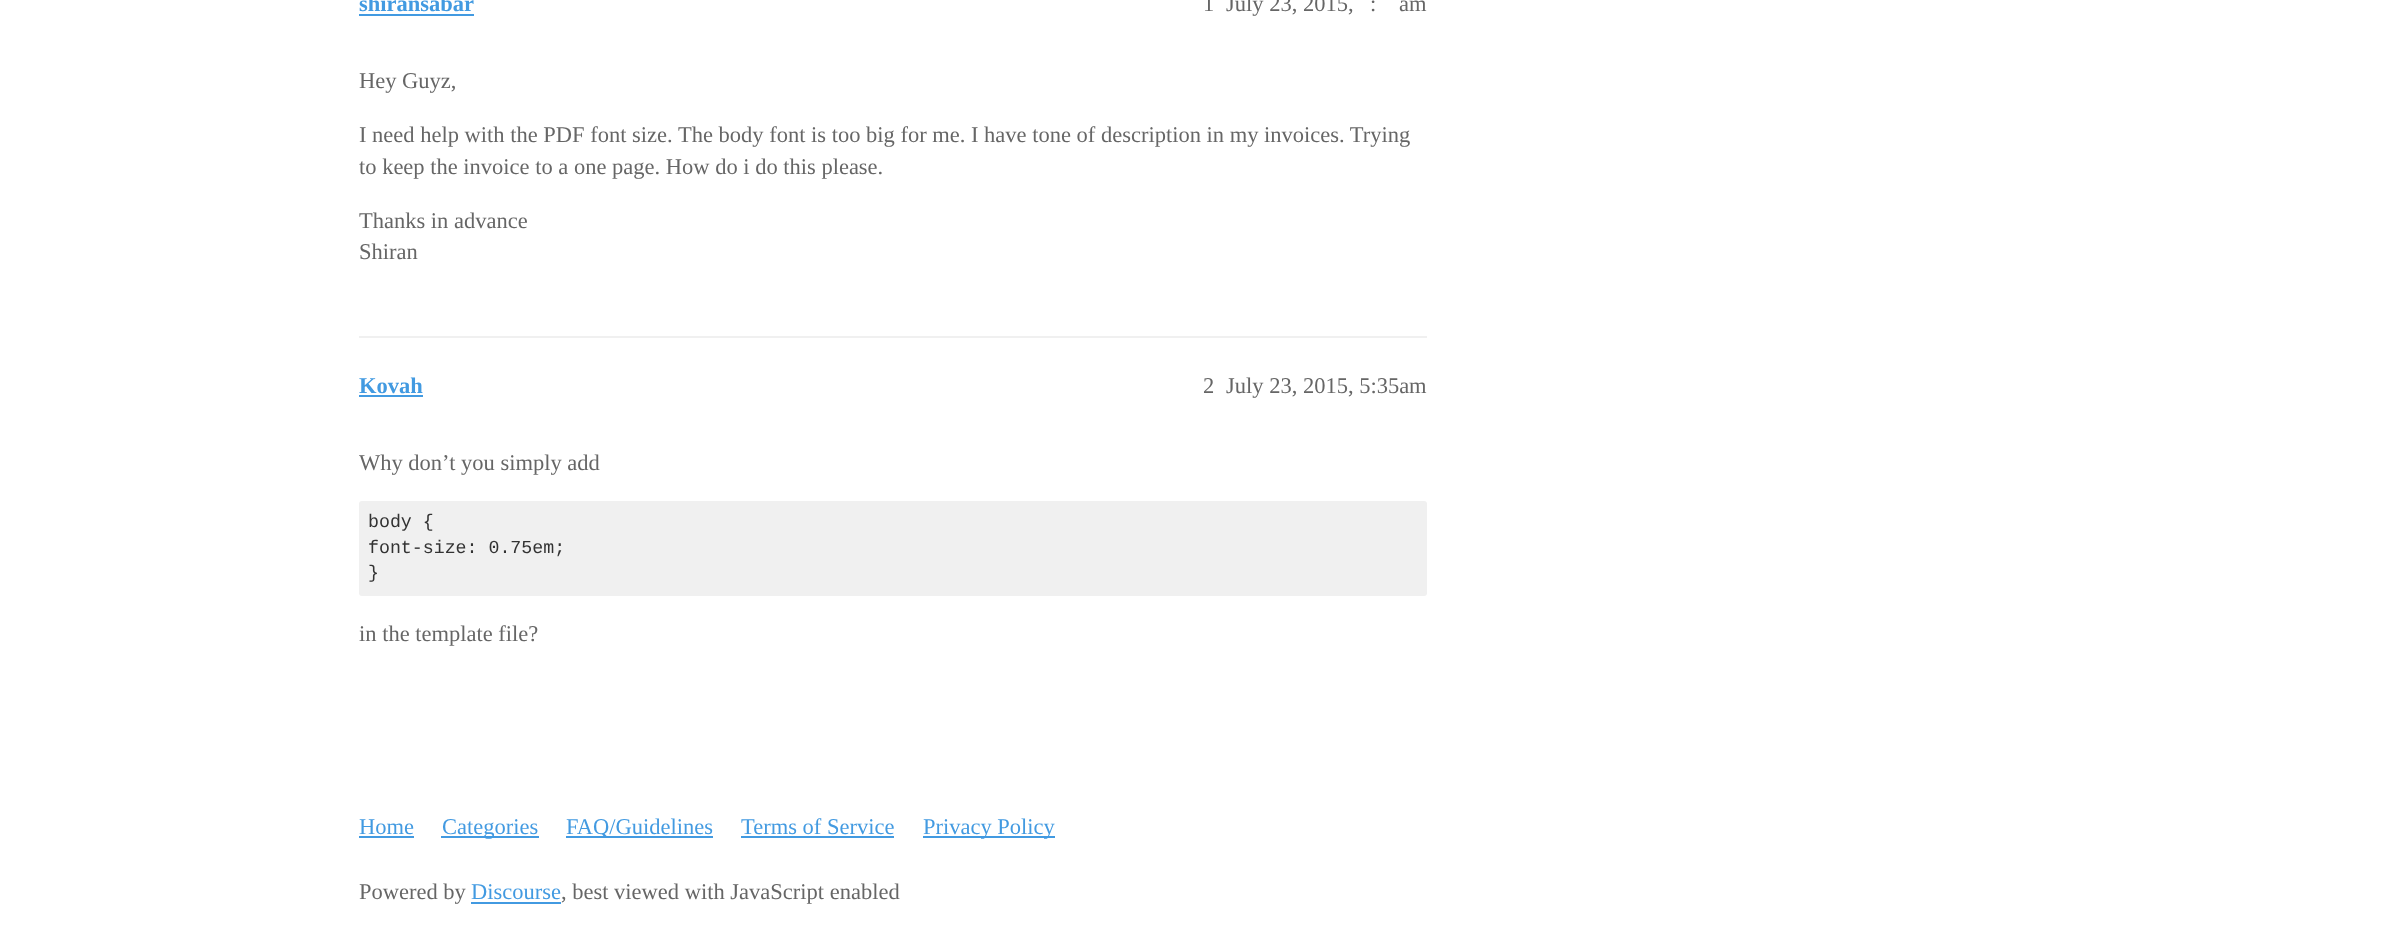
<svg xmlns="http://www.w3.org/2000/svg" xmlns:xlink="http://www.w3.org/1999/xlink" width="2382" height="931" viewBox="0 0 2382 931">
<style>
.cls-1{font:bold 22.5px Liberation Serif;fill:#429ae1}
.cls-2{font:22.5px Liberation Serif;fill:#666666}
.cls-3{font:18.25px Liberation Mono;fill:#333333}
.cls-4{font:22.5px Liberation Serif;fill:#429ae1}
</style>
<defs>
<clipPath id="clip1"><rect x="359" y="44" width="1068" height="247"/></clipPath>
</defs>
<rect width="100%" height="100%" fill="#ffffff"/>
<rect fill="#429ae1" x="359" y="14" width="115" height="2"/>
<rect fill="#f0f0f0" x="359" y="336" width="1068" height="2"/>
<rect fill="#429ae1" x="359" y="395" width="64" height="2"/>
<rect fill="#f0f0f0" x="359" y="501" width="1068" height="95" rx="3"/>
<rect fill="#429ae1" x="359" y="836" width="55" height="2"/>
<rect fill="#429ae1" x="441" y="836" width="98" height="2"/>
<rect fill="#429ae1" x="566" y="836" width="147" height="2"/>
<rect fill="#429ae1" x="741" y="836" width="153" height="2"/>
<rect fill="#429ae1" x="923" y="836" width="132" height="2"/>
<rect fill="#429ae1" x="471" y="902" width="90" height="2"/>
<text class="cls-1" x="359" y="11">shiransabar</text>
<text class="cls-2" x="1203" y="11">1</text>
<text class="cls-2" x="1226" y="11">July 23, 2015,</text>
<text class="cls-2" x="1370" y="11">:</text>
<text class="cls-2" x="1399" y="11">am</text>
<text class="cls-2" x="359" y="88">Hey Guyz,</text>
<text class="cls-2"><tspan x="359" y="142">I need help with the PDF font size. The body font is too big for me. I have tone of description in my invoices. Trying</tspan><tspan x="359" y="174">to keep the invoice to a one page. How do i do this please.</tspan></text>
<g clip-path="url(#clip1)">
<text class="cls-2" x="359" y="228">Thanks in advance</text>
</g>
<text class="cls-2" x="359" y="259">Shiran</text>
<text class="cls-1" x="359" y="393">Kovah</text>
<text class="cls-2" x="1203" y="393">2</text>
<text class="cls-2" x="1226" y="393">July 23, 2015, 5:35am</text>
<text class="cls-2" x="359" y="470">Why don’t you simply add</text>
<text class="cls-3"><tspan x="368" y="527">body {</tspan><tspan x="368" y="553">font-size: 0.75em;</tspan><tspan x="368" y="578">}</tspan></text>
<text class="cls-2" x="359" y="641">in the template file?</text>
<text class="cls-4" x="359" y="834">Home</text>
<text class="cls-4" x="442" y="834">Categories</text>
<text class="cls-4" x="566" y="834">FAQ/Guidelines</text>
<text class="cls-4" x="741" y="834">Terms of Service</text>
<text class="cls-4" x="923" y="834">Privacy Policy</text>
<text class="cls-2" x="359" y="899">Powered by</text>
<text class="cls-4" x="471" y="899">Discourse</text>
<text class="cls-2" x="561" y="899">, best viewed with JavaScript enabled</text>
</svg>
